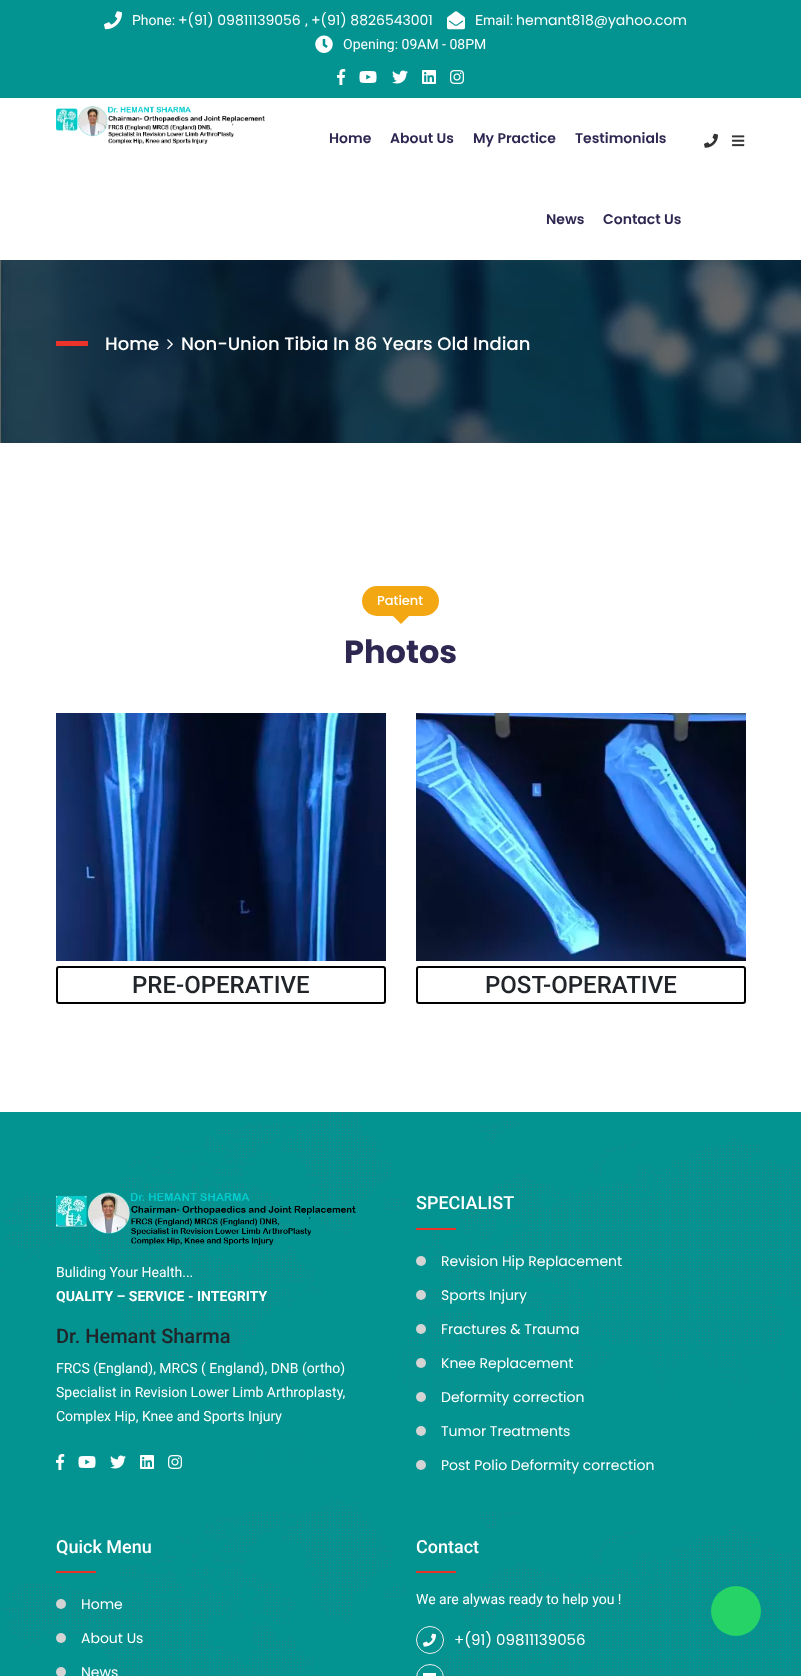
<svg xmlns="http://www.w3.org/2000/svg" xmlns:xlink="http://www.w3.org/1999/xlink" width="801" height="1676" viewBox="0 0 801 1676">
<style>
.cls-1{font:14px Roboto;fill:#ffffff}
.cls-2{font:14px Poppins;fill:#ffffff}
.cls-3{font:600 14px Poppins;fill:#2e2751}
.cls-4{font:500 18px Poppins;fill:#ffffff}
.cls-5{font:500 13px Poppins;fill:#ffffff}
.cls-6{font:bold 32px Poppins;fill:#2e2751}
.cls-7{font:500 24px Roboto;fill:#212529}
.cls-8{font:bold 14px Roboto;fill:#ffffff}
.cls-9{font:500 20px Roboto;fill:#212529}
.cls-10{font:500 18px Roboto;fill:#ffffff}
.cls-11{font:15px Poppins;fill:#ffffff}
</style>
<rect width="100%" height="100%" fill="#ffffff"/>
<rect fill="#039391" x="0" y="0" width="801" height="98"/>
<image xlink:href="image0.png" x="104" y="11" width="18" height="19"/>
<image xlink:href="image1.png" x="447" y="11" width="18" height="19"/>
<image xlink:href="image2.png" x="315" y="35" width="18" height="18"/>
<image xlink:href="image3.png" x="337" y="69" width="9" height="16"/>
<image xlink:href="image4.png" x="359" y="71" width="18" height="12"/>
<image xlink:href="image5.png" x="392" y="70" width="16" height="14"/>
<image xlink:href="image6.png" x="422" y="70" width="14" height="14"/>
<image xlink:href="image7.png" x="450" y="70" width="14" height="14"/>
<image xlink:href="image8.png" x="56" y="106" width="209" height="38"/>
<image xlink:href="image9.png" x="704" y="133" width="14" height="15"/>
<image xlink:href="image10.png" x="732" y="135" width="13" height="12"/>
<image xlink:href="image11.png" x="0" y="260" width="801" height="183"/>
<rect fill="#ea342a" x="56" y="341" width="32" height="5"/>
<image xlink:href="image12.png" x="167" y="339" width="6" height="11"/>
<rect fill="#f3a712" x="362" y="586" width="77" height="30" rx="15"/>
<path fill="#f3a712" d="M393 616H409L401 624Z"/>
<image xlink:href="image13.png" x="56" y="713" width="330" height="248"/>
<rect fill="none" stroke="#000000" stroke-width="2" x="57" y="967" width="328" height="36" rx="2"/>
<image xlink:href="image14.png" x="416" y="713" width="330" height="248"/>
<rect fill="none" stroke="#000000" stroke-width="2" x="417" y="967" width="328" height="36" rx="2"/>
<rect fill="#039391" x="0" y="1112" width="801" height="564"/>
<image xlink:href="image15.png" x="0" y="1112" width="799" height="563"/>
<image xlink:href="image16.png" x="56" y="1192" width="300" height="53"/>
<image xlink:href="image3.png" x="56" y="1454" width="9" height="16"/>
<image xlink:href="image4.png" x="78" y="1456" width="18" height="12"/>
<image xlink:href="image5.png" x="110" y="1455" width="16" height="14"/>
<image xlink:href="image6.png" x="140" y="1455" width="14" height="14"/>
<image xlink:href="image7.png" x="168" y="1455" width="14" height="14"/>
<rect fill="#ea342a" x="416" y="1228" width="40" height="2"/>
<circle fill="#d4d4d4" cx="421" cy="1261" r="5"/>
<circle fill="#d4d4d4" cx="421" cy="1295" r="5"/>
<circle fill="#d4d4d4" cx="421" cy="1329" r="5"/>
<circle fill="#d4d4d4" cx="421" cy="1363" r="5"/>
<circle fill="#d4d4d4" cx="421" cy="1397" r="5"/>
<circle fill="#d4d4d4" cx="421" cy="1431" r="5"/>
<circle fill="#d4d4d4" cx="421" cy="1465" r="5"/>
<rect fill="#ea342a" x="56" y="1571" width="40" height="2"/>
<circle fill="#d4d4d4" cx="61" cy="1604" r="5"/>
<circle fill="#d4d4d4" cx="61" cy="1638" r="5"/>
<circle fill="#d4d4d4" cx="61" cy="1672" r="5"/>
<rect fill="#ea342a" x="416" y="1571" width="40" height="2"/>
<circle fill="none" stroke="#eeeeee" cx="430" cy="1640" r="13.5"/>
<image xlink:href="image17.png" x="423" y="1633" width="13" height="14"/>
<rect fill="none" stroke="#eeeeee" x="416.5" y="1664.5" width="27" height="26" rx="13.5"/>
<rect fill="#ffffff" x="423" y="1673" width="13" height="3"/>
<circle fill="#25d366" cx="736" cy="1611" r="25"/>
<text class="cls-1" x="132" y="25">Phone:</text>
<text class="cls-2" x="178" y="25">+(91) 09811139056</text>
<text class="cls-1" x="305" y="25">,</text>
<text class="cls-2" x="311" y="25">+(91) 8826543001</text>
<text class="cls-1" x="475" y="25">Email:</text>
<text class="cls-2" x="516" y="25">hemant818@yahoo.com</text>
<text class="cls-1" x="343" y="49">Opening: 09AM - 08PM</text>
<text class="cls-3" x="329" y="143">Home</text>
<text class="cls-3" x="390" y="143">About Us</text>
<text class="cls-3" x="473" y="143">My Practice</text>
<text class="cls-3" x="575" y="143">Testimonials</text>
<text class="cls-3" x="546" y="224">News</text>
<text class="cls-3" x="603" y="224">Contact Us</text>
<text class="cls-4" x="105" y="350">Home</text>
<text class="cls-4" x="181" y="350">Non-Union Tibia In 86 Years Old Indian</text>
<text class="cls-5" x="377" y="605">Patient</text>
<text class="cls-6" x="344" y="663">Photos</text>
<text class="cls-7" x="132" y="993">PRE-OPERATIVE</text>
<text class="cls-7" x="485" y="993">POST-OPERATIVE</text>
<text class="cls-1" x="56" y="1277">Buliding Your Health...</text>
<text class="cls-8" x="56" y="1301">QUALITY – SERVICE - INTEGRITY</text>
<text class="cls-9" x="56" y="1343">Dr. Hemant Sharma</text>
<text class="cls-1"><tspan x="56" y="1373">FRCS (England), MRCS ( England), DNB (ortho)</tspan><tspan x="56" y="1397">Specialist in Revision Lower Limb Arthroplasty,</tspan><tspan x="56" y="1421">Complex Hip, Knee and Sports Injury</tspan></text>
<text class="cls-10" x="416" y="1209">SPECIALIST</text>
<text class="cls-2" x="441" y="1266">Revision Hip Replacement</text>
<text class="cls-2" x="441" y="1300">Sports Injury</text>
<text class="cls-2" x="441" y="1334">Fractures &amp; Trauma</text>
<text class="cls-2" x="441" y="1368">Knee Replacement</text>
<text class="cls-2" x="441" y="1402">Deformity correction</text>
<text class="cls-2" x="441" y="1436">Tumor Treatments</text>
<text class="cls-2" x="441" y="1470">Post Polio Deformity correction</text>
<text class="cls-10" x="56" y="1553">Quick Menu</text>
<text class="cls-2" x="81" y="1609">Home</text>
<text class="cls-2" x="81" y="1643">About Us</text>
<text class="cls-2" x="81" y="1677">News</text>
<text class="cls-10" x="416" y="1553">Contact</text>
<text class="cls-1" x="416" y="1604">We are alywas ready to help you !</text>
<text class="cls-11" x="454" y="1645">+(91) 09811139056</text>
</svg>
